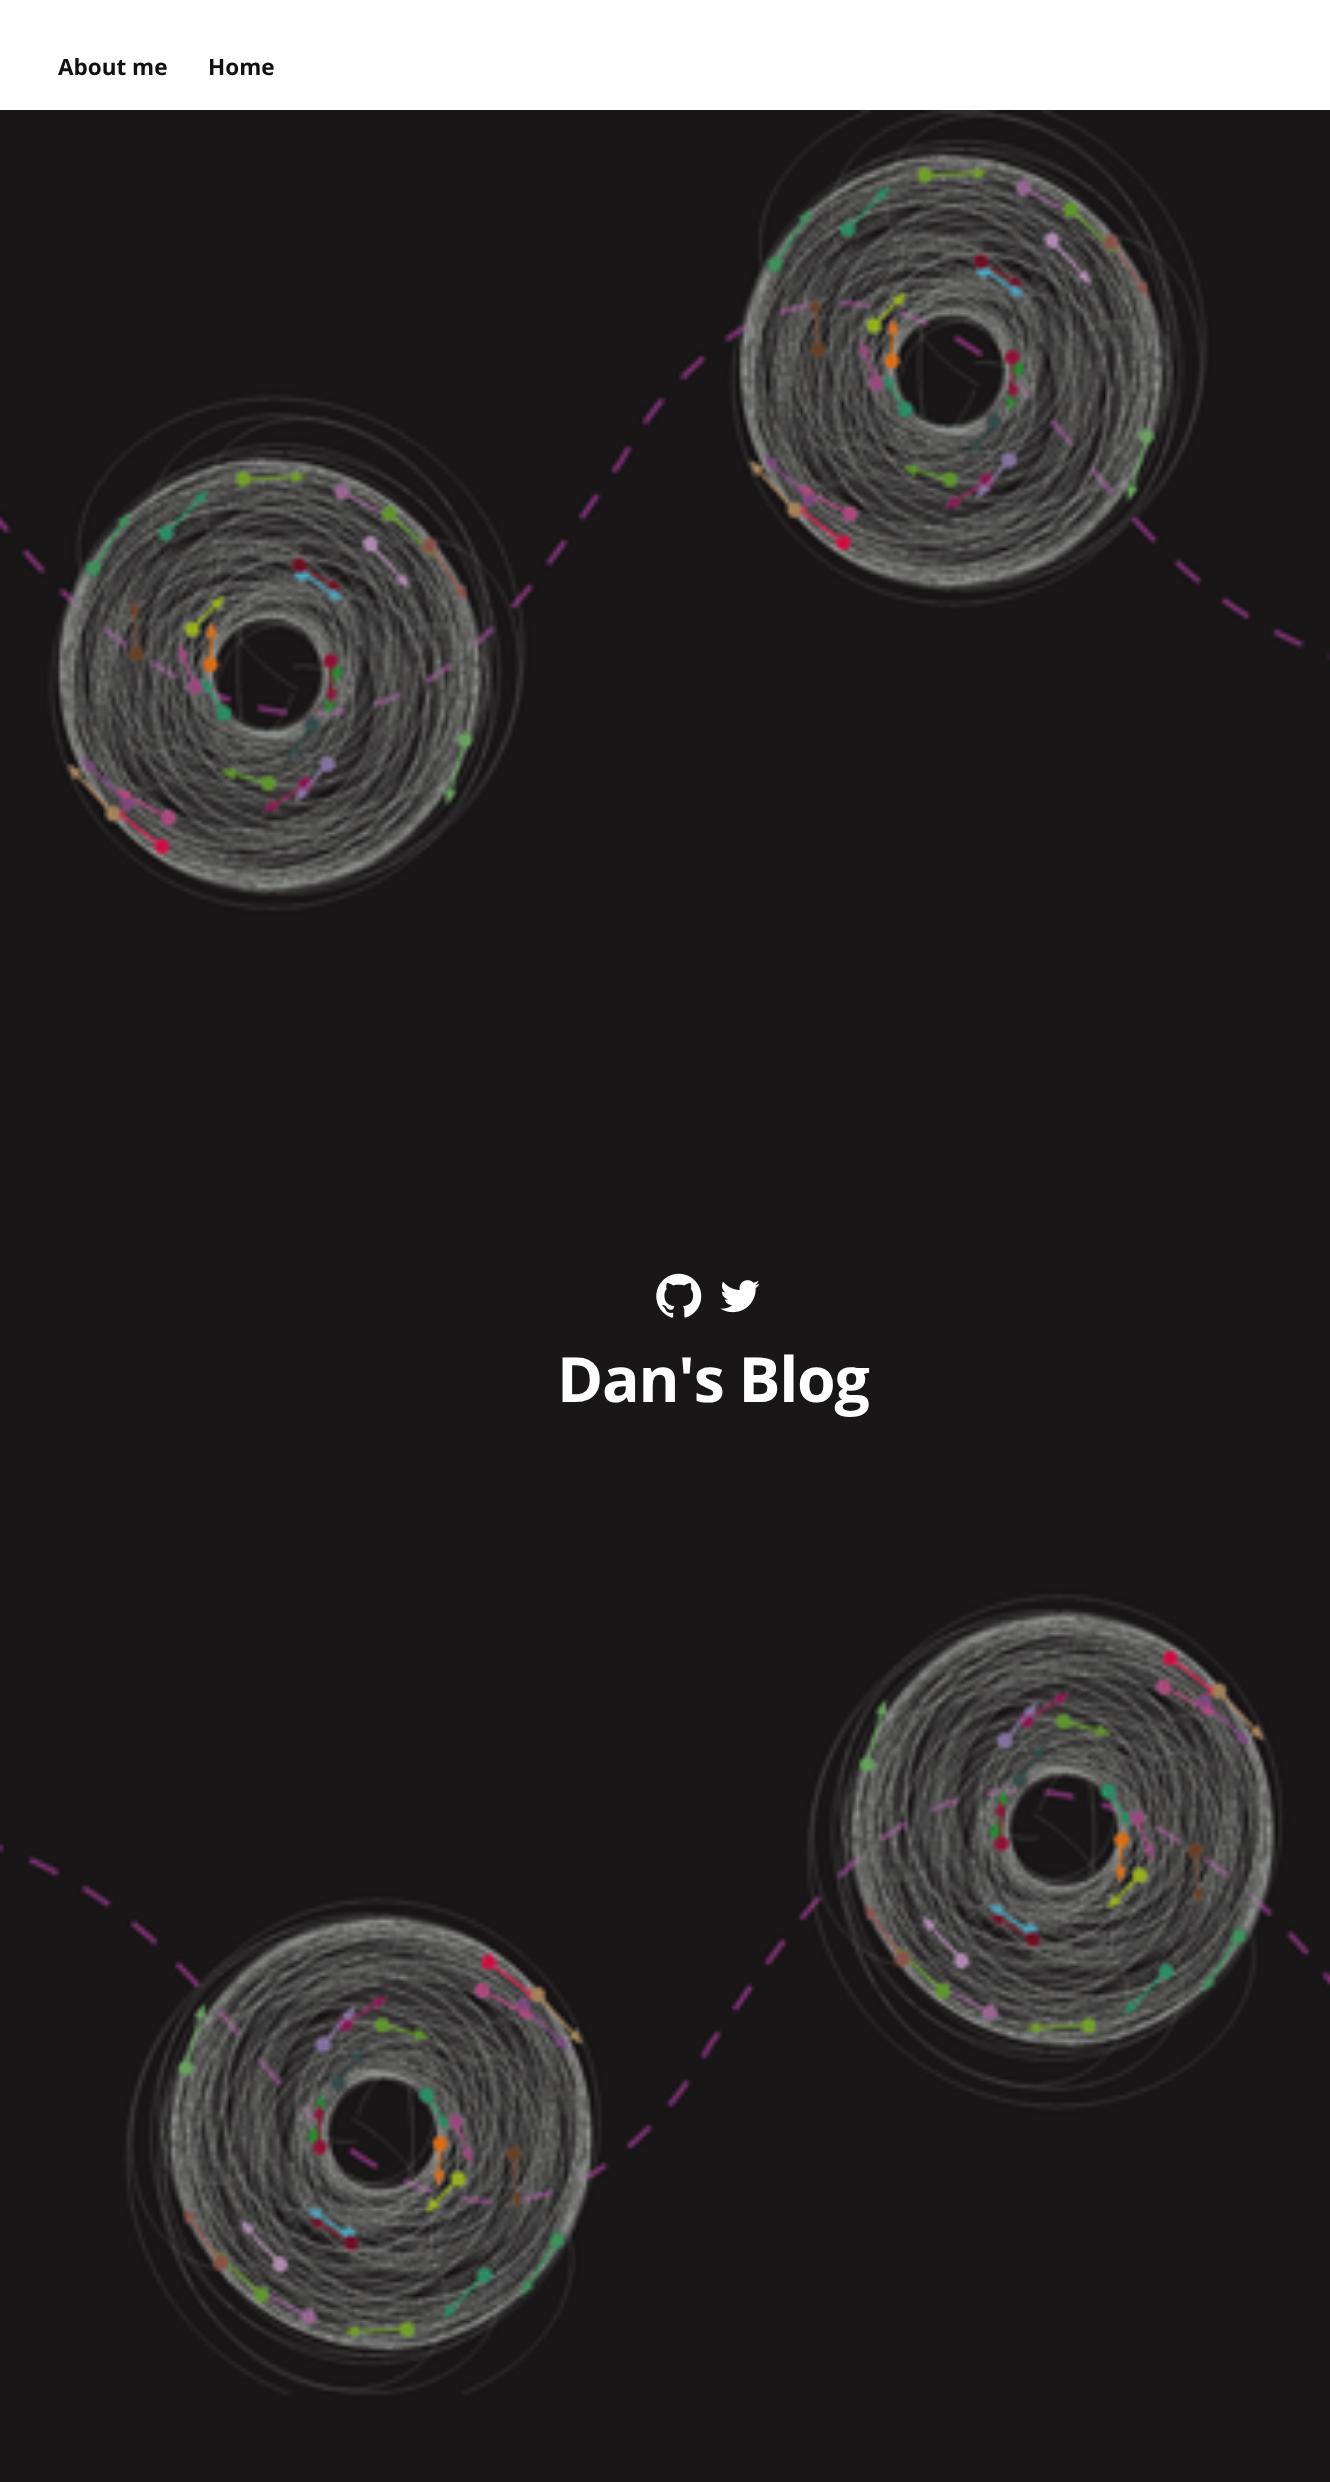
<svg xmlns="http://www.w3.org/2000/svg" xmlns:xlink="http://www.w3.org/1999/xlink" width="1330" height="2482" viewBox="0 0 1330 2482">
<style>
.cls-1{font:bold 22.5px Open Sans;fill:#111111}
.cls-2{font:bold 62.5px Open Sans;letter-spacing:-1.25px;fill:#ffffff}
</style>
<rect width="100%" height="100%" fill="#ffffff"/>
<image xlink:href="image0.png" x="0" y="110" width="1330" height="2372"/>
<image xlink:href="image1.png" x="656" y="1273" width="46" height="45"/>
<image xlink:href="image2.png" x="720" y="1280" width="40" height="33"/>
<text class="cls-1" x="58" y="75">About me</text>
<text class="cls-1" x="208" y="75">Home</text>
<text class="cls-2" x="557" y="1402">Dan's Blog</text>
</svg>
